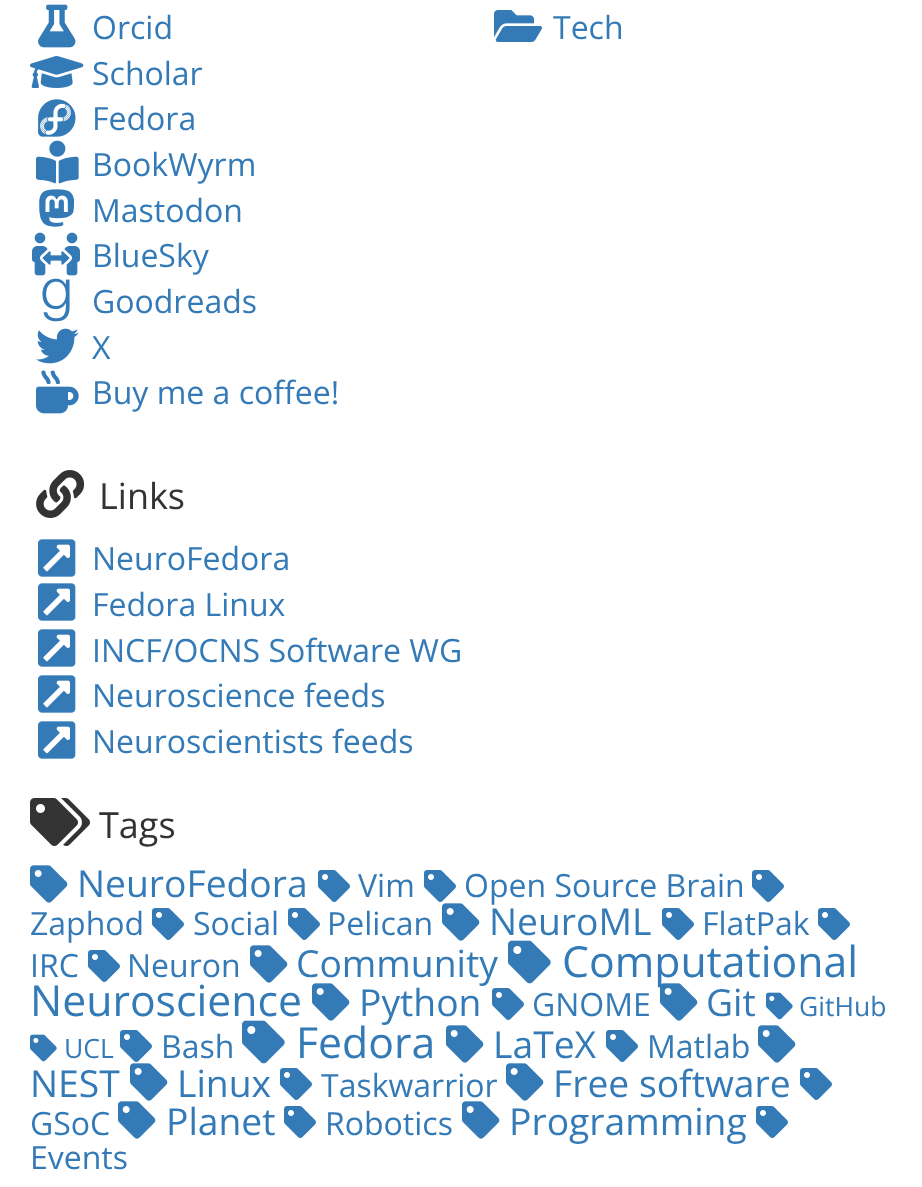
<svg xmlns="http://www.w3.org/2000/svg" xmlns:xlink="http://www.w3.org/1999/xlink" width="922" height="1187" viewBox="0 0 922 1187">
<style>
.cls-1{font:32px Open Sans;fill:#337ab7}
.cls-2{font:36px Open Sans;fill:#333333}
.cls-3{font:37.25px Open Sans;fill:#337ab7}
.cls-4{font:42.75px Open Sans;fill:#337ab7}
.cls-5{font:26.5px Open Sans;fill:#337ab7}
</style>
<rect width="100%" height="100%" fill="#ffffff"/>
<image xlink:href="image0.png" x="38" y="4" width="38" height="44"/>
<image xlink:href="image1.png" x="30" y="56" width="54" height="32"/>
<image xlink:href="image2.png" x="38" y="99" width="38" height="38"/>
<image xlink:href="image3.png" x="36" y="140" width="43" height="44"/>
<image xlink:href="image4.png" x="39" y="189" width="36" height="38"/>
<image xlink:href="image5.png" x="32" y="232" width="48" height="44"/>
<image xlink:href="image6.png" x="42" y="278" width="28" height="44"/>
<image xlink:href="image7.png" x="36" y="328" width="43" height="36"/>
<image xlink:href="image8.png" x="36" y="370" width="43" height="44"/>
<image xlink:href="image9.png" x="494" y="10" width="48" height="32"/>
<image xlink:href="image10.png" x="36" y="470" width="49" height="48"/>
<image xlink:href="image11.png" x="38" y="539" width="38" height="38"/>
<image xlink:href="image11.png" x="38" y="583" width="38" height="38"/>
<image xlink:href="image11.png" x="38" y="629" width="38" height="38"/>
<image xlink:href="image11.png" x="38" y="675" width="38" height="38"/>
<image xlink:href="image11.png" x="38" y="721" width="38" height="38"/>
<image xlink:href="image12.png" x="30" y="798" width="60" height="48"/>
<image xlink:href="image13.png" x="30" y="865" width="38" height="38"/>
<image xlink:href="image14.png" x="318" y="870" width="32" height="32"/>
<image xlink:href="image14.png" x="424" y="870" width="32" height="32"/>
<image xlink:href="image14.png" x="752" y="870" width="32" height="32"/>
<image xlink:href="image14.png" x="152" y="908" width="32" height="32"/>
<image xlink:href="image14.png" x="288" y="908" width="32" height="32"/>
<image xlink:href="image14.png" x="662" y="908" width="32" height="32"/>
<image xlink:href="image15.png" x="508" y="940" width="43" height="44"/>
<image xlink:href="image14.png" x="818" y="908" width="32" height="32"/>
<image xlink:href="image14.png" x="88" y="950" width="32" height="32"/>
<image xlink:href="image13.png" x="250" y="945" width="38" height="38"/>
<image xlink:href="image14.png" x="492" y="988" width="32" height="32"/>
<image xlink:href="image17.png" x="766" y="992" width="27" height="28"/>
<image xlink:href="image17.png" x="30" y="1034" width="27" height="28"/>
<image xlink:href="image14.png" x="120" y="1030" width="32" height="32"/>
<image xlink:href="image15.png" x="242" y="1020" width="43" height="44"/>
<image xlink:href="image13.png" x="446" y="1025" width="38" height="38"/>
<image xlink:href="image14.png" x="606" y="1030" width="32" height="32"/>
<image xlink:href="image13.png" x="758" y="1025" width="38" height="38"/>
<image xlink:href="image13.png" x="130" y="1063" width="38" height="38"/>
<image xlink:href="image14.png" x="280" y="1068" width="32" height="32"/>
<image xlink:href="image13.png" x="506" y="1063" width="38" height="38"/>
<image xlink:href="image14.png" x="800" y="1068" width="32" height="32"/>
<image xlink:href="image13.png" x="118" y="1101" width="38" height="38"/>
<image xlink:href="image14.png" x="284" y="1106" width="32" height="32"/>
<image xlink:href="image13.png" x="462" y="1101" width="38" height="38"/>
<image xlink:href="image14.png" x="756" y="1106" width="32" height="32"/>
<text class="cls-1"><tspan x="92" y="39">Orcid</tspan><tspan x="92" y="85">Scholar</tspan><tspan x="92" y="130">Fedora</tspan><tspan x="92" y="176">BookWyrm</tspan><tspan x="92" y="222">Mastodon</tspan><tspan x="92" y="267">BlueSky</tspan><tspan x="92" y="313">Goodreads</tspan><tspan x="92" y="359">X</tspan><tspan x="92" y="404">Buy me a coffee!</tspan></text>
<text class="cls-1" x="553" y="39">Tech</text>
<text class="cls-2" x="99" y="509">Links</text>
<text class="cls-1"><tspan x="92" y="570">NeuroFedora</tspan><tspan x="92" y="616">Fedora Linux</tspan><tspan x="92" y="662">INCF/OCNS Software WG</tspan><tspan x="92" y="707">Neuroscience feeds</tspan><tspan x="92" y="753">Neuroscientists feeds</tspan></text>
<text class="cls-2" x="99" y="838">Tags</text>
<text class="cls-3" x="77" y="897">NeuroFedora</text>
<text class="cls-1" x="358" y="897">Vim</text>
<text class="cls-1" x="464" y="897">Open Source Brain</text>
<text class="cls-1" x="30" y="935">Zaphod</text>
<text class="cls-1" x="193" y="935">Social</text>
<text class="cls-1" x="327" y="935">Pelican</text>
<image xlink:href="image13.png" x="442" y="903" width="38" height="38"/>
<text class="cls-3" x="489" y="935">NeuroML</text>
<text class="cls-1" x="702" y="935">FlatPak</text>
<text class="cls-4" x="562" y="977">Computational</text>
<text class="cls-4" x="30" y="1016">Neuroscience</text>
<text class="cls-1" x="30" y="977">IRC</text>
<text class="cls-1" x="127" y="977">Neuron</text>
<text class="cls-3" x="296" y="977">Community</text>
<image xlink:href="image13.png" x="312" y="983" width="38" height="38"/>
<text class="cls-3" x="359" y="1016">Python</text>
<text class="cls-1" x="532" y="1016">GNOME</text>
<image xlink:href="image16.png" x="660" y="983" width="38" height="38"/>
<text class="cls-3" x="706" y="1016">Git</text>
<text class="cls-5" x="799" y="1016">GitHub</text>
<text class="cls-5" x="64" y="1058">UCL</text>
<text class="cls-1" x="161" y="1058">Bash</text>
<text class="cls-4" x="296" y="1058">Fedora</text>
<text class="cls-3" x="493" y="1058">LaTeX</text>
<text class="cls-1" x="647" y="1058">Matlab</text>
<text class="cls-3" x="30" y="1097">NEST</text>
<text class="cls-3" x="177" y="1097">Linux</text>
<text class="cls-1" x="321" y="1097">Taskwarrior</text>
<text class="cls-3" x="553" y="1097">Free software</text>
<text class="cls-1" x="30" y="1135">GSoC</text>
<text class="cls-3" x="166" y="1135">Planet</text>
<text class="cls-1" x="325" y="1135">Robotics</text>
<text class="cls-3" x="509" y="1135">Programming</text>
<text class="cls-1" x="30" y="1169">Events</text>
</svg>
